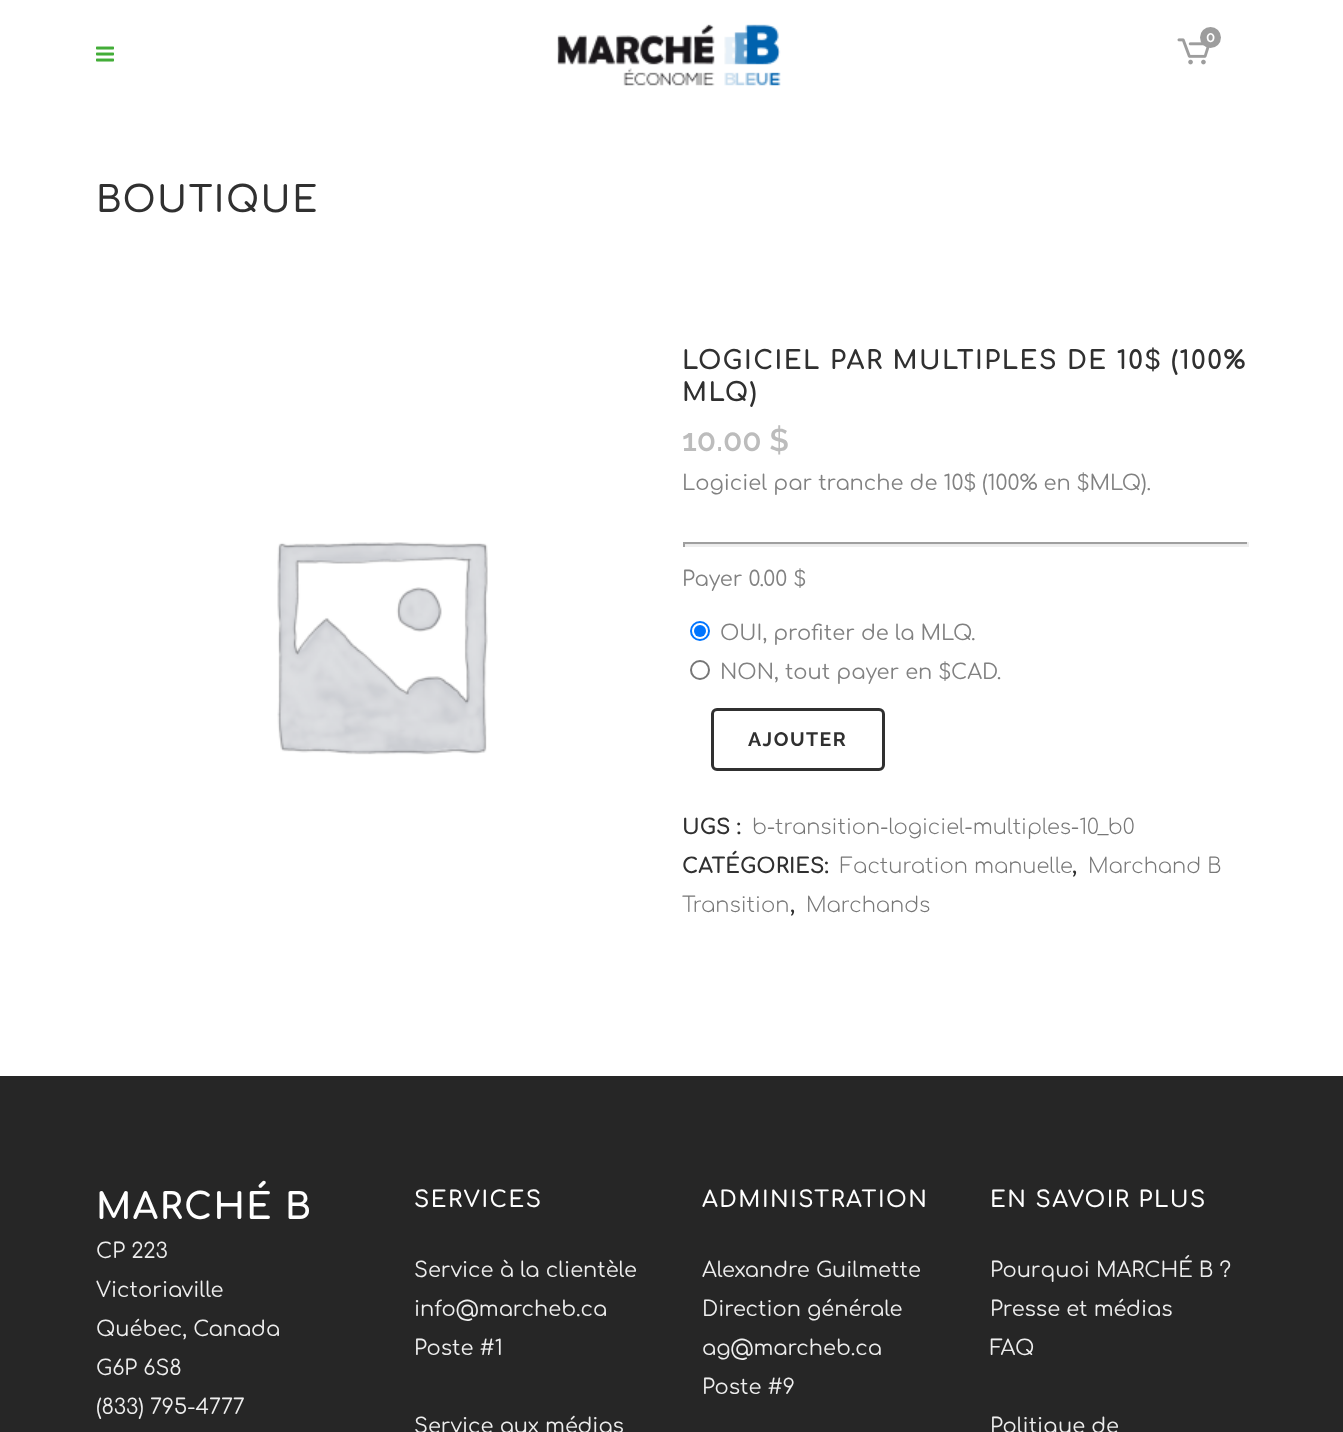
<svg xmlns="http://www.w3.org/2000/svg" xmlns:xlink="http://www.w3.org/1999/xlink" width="1343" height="1432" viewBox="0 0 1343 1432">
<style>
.cls-1{font:600 15px Raleway;fill:#ffffff}
.cls-2{font:600 36px Comfortaa;letter-spacing:1.5px;fill:#303030}
.cls-3{font:bold 25.5px Comfortaa;letter-spacing:1.5px;fill:#303030}
.cls-4{font:600 31.5px Raleway;fill:#bcbcbc}
.cls-5{font:21px Comfortaa;fill:#818181}
.cls-6{font:bold 19.5px Raleway;letter-spacing:1.5px;fill:#303030}
.cls-7{font:bold 21px Comfortaa;fill:#303030}
.cls-8{font:300 21px Comfortaa;fill:#777777}
.cls-9{font:bold 36px Comfortaa;letter-spacing:1.5px;fill:#ffffff}
.cls-10{font:21px Comfortaa;fill:#eeeeee}
.cls-11{font:600 22.5px Comfortaa;letter-spacing:1.5px;fill:#ffffff}
</style>
<rect width="100%" height="100%" fill="#ffffff"/>
<image xlink:href="image0.png" x="96" y="46" width="18" height="16"/>
<image xlink:href="image1.png" x="557" y="24" width="224" height="62"/>
<image xlink:href="image2.png" x="1177" y="38" width="33" height="27"/>
<circle fill="#9d9d9d" cx="1210.5" cy="37.5" r="10.5"/>
<image xlink:href="image3.png" x="277" y="542" width="211" height="213"/>
<rect fill="#eaeaea" x="683" y="544" width="565" height="1"/>
<rect fill="#9f9f9f" x="683" y="542" width="565" height="2"/>
<rect fill="#eeeeee" x="1247" y="542" width="2" height="5"/>
<rect fill="#eeeeee" x="683" y="545" width="565" height="2"/>
<rect fill="#9f9f9f" x="683" y="542" width="2" height="5"/>
<circle fill="none" stroke="#0075ff" stroke-width="2" cx="700" cy="631" r="9"/>
<circle fill="#0075ff" cx="700" cy="631" r="6"/>
<circle fill="none" stroke="#767676" stroke-width="2" cx="700" cy="670" r="9"/>
<rect fill="none" stroke="#303030" stroke-width="3" x="712.5" y="709.5" width="171" height="60" rx="4.5"/>
<rect fill="#262626" x="0" y="1076" width="1343" height="356"/>
<text class="cls-1" x="1206" y="42">0</text>
<text class="cls-2" x="96" y="212">BOUTIQUE</text>
<text class="cls-3"><tspan x="682" y="369">LOGICIEL PAR MULTIPLES DE 10$ (100%</tspan><tspan x="682" y="401">MLQ)</tspan></text>
<text class="cls-4" x="682" y="451">10.00 $</text>
<text class="cls-5" x="682" y="490">Logiciel par tranche de 10$ (100% en $MLQ).</text>
<text class="cls-5" x="682" y="586">Payer 0.00 $</text>
<text class="cls-5"><tspan x="720" y="640">OUI, profiter de la MLQ.</tspan><tspan x="720" y="679">NON, tout payer en $CAD.</tspan></text>
<text class="cls-6" x="748" y="746">AJOUTER</text>
<text class="cls-7" x="682" y="834">UGS :</text>
<text class="cls-8" x="752" y="834">b-transition-logiciel-multiples-10_b0</text>
<text class="cls-7" x="682" y="873">CATÉGORIES:</text>
<text class="cls-8" x="840" y="873">Facturation manuelle</text>
<text class="cls-7" x="1072" y="873">,</text>
<text class="cls-8" x="1088" y="873">Marchand B</text>
<text class="cls-8" x="682" y="912">Transition</text>
<text class="cls-7" x="790" y="912">,</text>
<text class="cls-8" x="806" y="912">Marchands</text>
<text class="cls-9" x="96" y="1219">MARCHÉ B</text>
<text class="cls-10"><tspan x="96" y="1258">CP 223</tspan><tspan x="96" y="1297">Victoriaville</tspan><tspan x="96" y="1336">Québec, Canada</tspan><tspan x="96" y="1375">G6P 6S8</tspan><tspan x="96" y="1414">(833) 795-4777</tspan></text>
<text class="cls-11" x="414" y="1207">SERVICES</text>
<text class="cls-10"><tspan x="414" y="1277">Service à la clientèle</tspan><tspan x="414" y="1316">info@marcheb.ca</tspan><tspan x="414" y="1355">Poste #1</tspan></text>
<text class="cls-10" x="414" y="1433">Service aux médias</text>
<text class="cls-11" x="702" y="1207">ADMINISTRATION</text>
<text class="cls-10"><tspan x="702" y="1277">Alexandre Guilmette</tspan><tspan x="702" y="1316">Direction générale</tspan><tspan x="702" y="1355">ag@marcheb.ca</tspan><tspan x="702" y="1394">Poste #9</tspan></text>
<text class="cls-11" x="990" y="1207">EN SAVOIR PLUS</text>
<text class="cls-10"><tspan x="990" y="1277">Pourquoi MARCHÉ B ?</tspan><tspan x="990" y="1316">Presse et médias</tspan><tspan x="990" y="1355">FAQ</tspan></text>
<text class="cls-10" x="990" y="1433">Politique de</text>
</svg>
